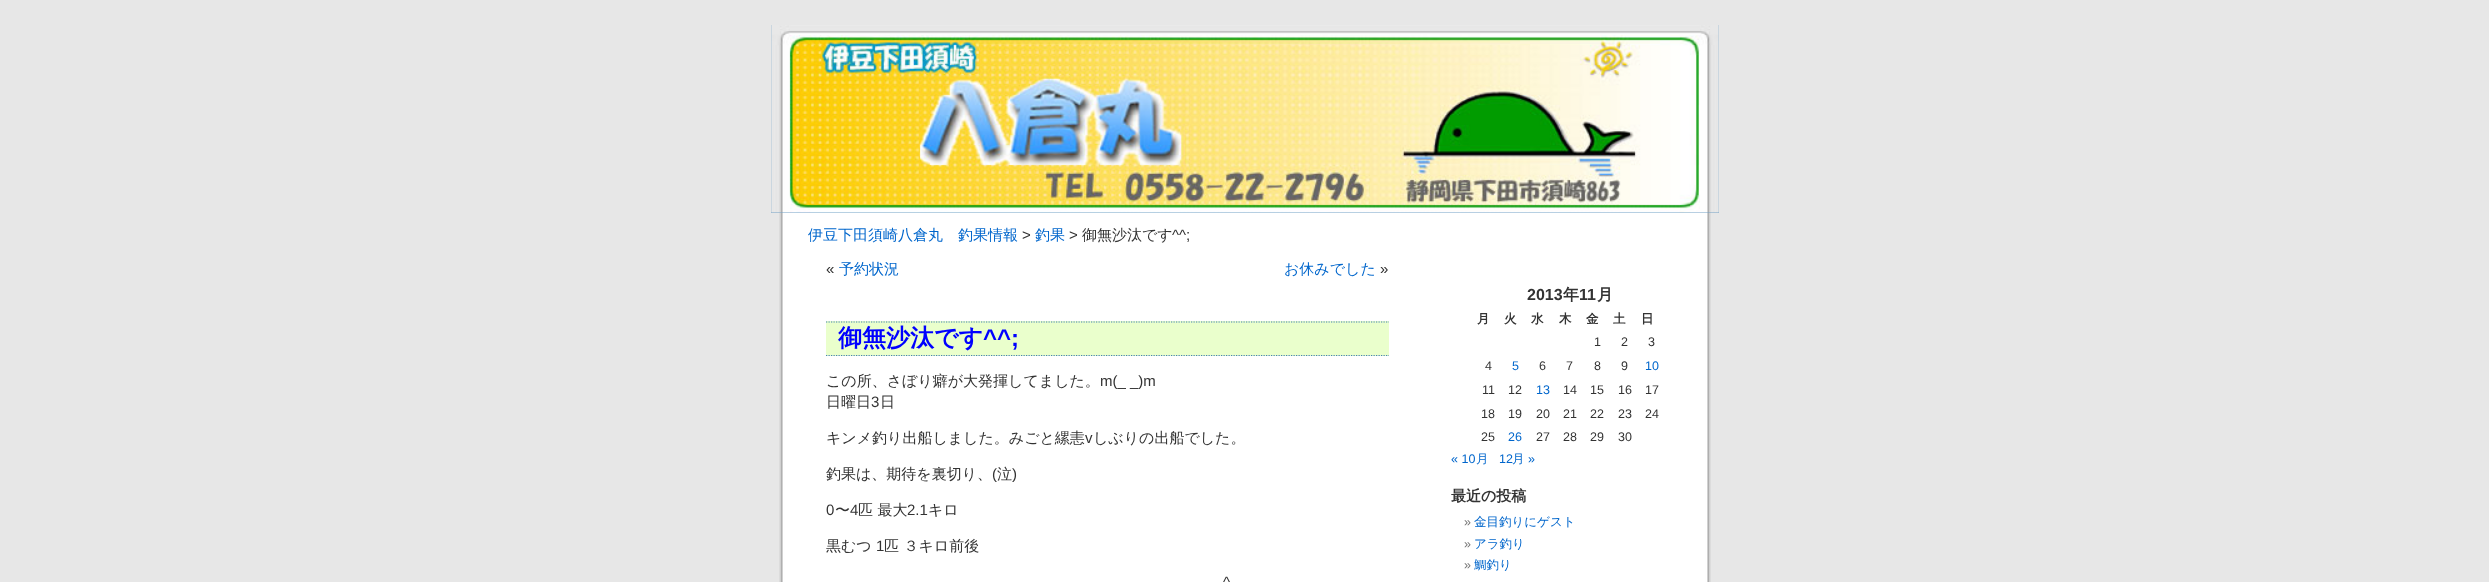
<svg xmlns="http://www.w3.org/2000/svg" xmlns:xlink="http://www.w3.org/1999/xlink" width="2489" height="582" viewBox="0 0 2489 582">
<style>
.cls-1{font:500 15px WenQuanYi Zen Hei;fill:#0066cc}
.cls-2{font:15px Liberation Sans;fill:#333333}
.cls-3{font:500 15px WenQuanYi Zen Hei;fill:#333333}
.cls-4{font:bold 24px WenQuanYi Zen Hei;fill:#0000ff}
.cls-5{font:bold 24px Liberation Sans;fill:#0000ff}
.cls-6{font:bold 16px Liberation Sans;fill:#333333}
.cls-7{font:bold 16px WenQuanYi Zen Hei;fill:#333333}
.cls-8{font:bold 12.5px WenQuanYi Zen Hei;fill:#333333}
.cls-9{font:12.5px Liberation Sans;fill:#333333}
.cls-10{font:12.5px Liberation Sans;fill:#0066cc}
.cls-11{font:500 12.5px WenQuanYi Zen Hei;fill:#0066cc}
.cls-12{font:bold 15px WenQuanYi Zen Hei;fill:#333333}
.cls-13{font:12.5px Liberation Sans;fill:#777777}
</style>
<rect width="100%" height="100%" fill="#e7e7e7"/>
<image xlink:href="image0.png" x="779" y="213" width="932" height="369"/>
<rect fill="#73a0c5" x="771" y="25" width="948" height="188"/>
<image xlink:href="image1.png" x="771" y="25" width="948" height="188"/>
<rect fill="#eaffcc" x="826" y="321" width="563" height="35"/>
<path fill="none" stroke="#4682b4" stroke-width="1.2" stroke-dasharray="1.25 1.25" d="M826 322H1389"/>
<path fill="none" stroke="#4682b4" stroke-width="1.2" stroke-dasharray="1.25 1.25" d="M826 355.5H1389"/>
<text class="cls-1" x="808" y="240">伊豆下田須崎八倉丸　釣果情報</text>
<text class="cls-2" x="1022" y="240">&gt;</text>
<text class="cls-1" x="1035" y="240">釣果</text>
<text class="cls-2" x="1069" y="240">&gt;</text>
<text class="cls-3" x="1082" y="240">御無沙汰です</text>
<text class="cls-2" x="1172" y="240">^^;</text>
<text class="cls-2" x="826" y="274">«</text>
<text class="cls-1" x="839" y="274">予約状況</text>
<text class="cls-1" x="1284" y="274">お休みでした</text>
<text class="cls-2" x="1380" y="274">»</text>
<text class="cls-4" x="838" y="346">御無沙汰です</text>
<text class="cls-5" x="983" y="346">^^;</text>
<text class="cls-3" x="826" y="386">この所、さぼり癖が大発揮してました。</text>
<text class="cls-2" x="1100" y="386">m(_ _)m</text>
<text class="cls-3" x="826" y="407">日曜日</text>
<text class="cls-2" x="871" y="407">3</text>
<text class="cls-3" x="880" y="407">日</text>
<text class="cls-3" x="826" y="443">キンメ釣り出船しました。みごと縲恚</text>
<text class="cls-2" x="1085" y="443">v</text>
<text class="cls-3" x="1093" y="443">しぶりの出船でした。</text>
<text class="cls-3" x="826" y="479">釣果は、期待を裏切り、</text>
<text class="cls-2" x="992" y="479">(</text>
<text class="cls-3" x="997" y="479">泣</text>
<text class="cls-2" x="1012" y="479">)</text>
<text class="cls-2" x="826" y="515">0</text>
<text class="cls-3" x="835" y="515">〜</text>
<text class="cls-2" x="850" y="515">4</text>
<text class="cls-3" x="858" y="515">匹 最大</text>
<text class="cls-2" x="907" y="515">2.1</text>
<text class="cls-3" x="928" y="515">キロ</text>
<text class="cls-3" x="826" y="551">黒むつ</text>
<text class="cls-2" x="876" y="551">1</text>
<text class="cls-3" x="884" y="551">匹 ３キロ前後</text>
<text class="cls-2" x="1223" y="587">^</text>
<text class="cls-6" x="1527" y="300">2013</text>
<text class="cls-7" x="1563" y="300">年</text>
<text class="cls-6" x="1579" y="300">11</text>
<text class="cls-7" x="1597" y="300">月</text>
<text class="cls-8" x="1477" y="323">月</text>
<text class="cls-8" x="1504" y="323">火</text>
<text class="cls-8" x="1531" y="323">水</text>
<text class="cls-8" x="1559" y="323">木</text>
<text class="cls-8" x="1586" y="323">金</text>
<text class="cls-8" x="1613" y="323">土</text>
<text class="cls-8" x="1641" y="323">日</text>
<text class="cls-9" x="1594" y="346">1</text>
<text class="cls-9" x="1621" y="346">2</text>
<text class="cls-9" x="1648" y="346">3</text>
<text class="cls-9" x="1485" y="370">4</text>
<text class="cls-10" x="1512" y="370">5</text>
<text class="cls-9" x="1539" y="370">6</text>
<text class="cls-9" x="1566" y="370">7</text>
<text class="cls-9" x="1594" y="370">8</text>
<text class="cls-9" x="1621" y="370">9</text>
<text class="cls-10" x="1645" y="370">10</text>
<text class="cls-9" x="1482" y="394">11</text>
<text class="cls-9" x="1508" y="394">12</text>
<text class="cls-10" x="1536" y="394">13</text>
<text class="cls-9" x="1563" y="394">14</text>
<text class="cls-9" x="1590" y="394">15</text>
<text class="cls-9" x="1618" y="394">16</text>
<text class="cls-9" x="1645" y="394">17</text>
<text class="cls-9" x="1481" y="418">18</text>
<text class="cls-9" x="1508" y="418">19</text>
<text class="cls-9" x="1536" y="418">20</text>
<text class="cls-9" x="1563" y="418">21</text>
<text class="cls-9" x="1590" y="418">22</text>
<text class="cls-9" x="1618" y="418">23</text>
<text class="cls-9" x="1645" y="418">24</text>
<text class="cls-9" x="1481" y="441">25</text>
<text class="cls-10" x="1508" y="441">26</text>
<text class="cls-9" x="1536" y="441">27</text>
<text class="cls-9" x="1563" y="441">28</text>
<text class="cls-9" x="1590" y="441">29</text>
<text class="cls-9" x="1618" y="441">30</text>
<text class="cls-10" x="1451" y="463">« 10</text>
<text class="cls-11" x="1476" y="463">月</text>
<text class="cls-10" x="1499" y="463">12</text>
<text class="cls-11" x="1512" y="463">月</text>
<text class="cls-10" x="1528" y="463">»</text>
<text class="cls-12" x="1451" y="501">最近の投稿</text>
<text class="cls-13" x="1464" y="526">»</text>
<text class="cls-11" x="1474" y="526">金目釣りにゲスト</text>
<text class="cls-13" x="1464" y="548">»</text>
<text class="cls-11" x="1474" y="548">アラ釣り</text>
<text class="cls-13" x="1464" y="569">»</text>
<text class="cls-11" x="1474" y="569">鯛釣り</text>
</svg>
